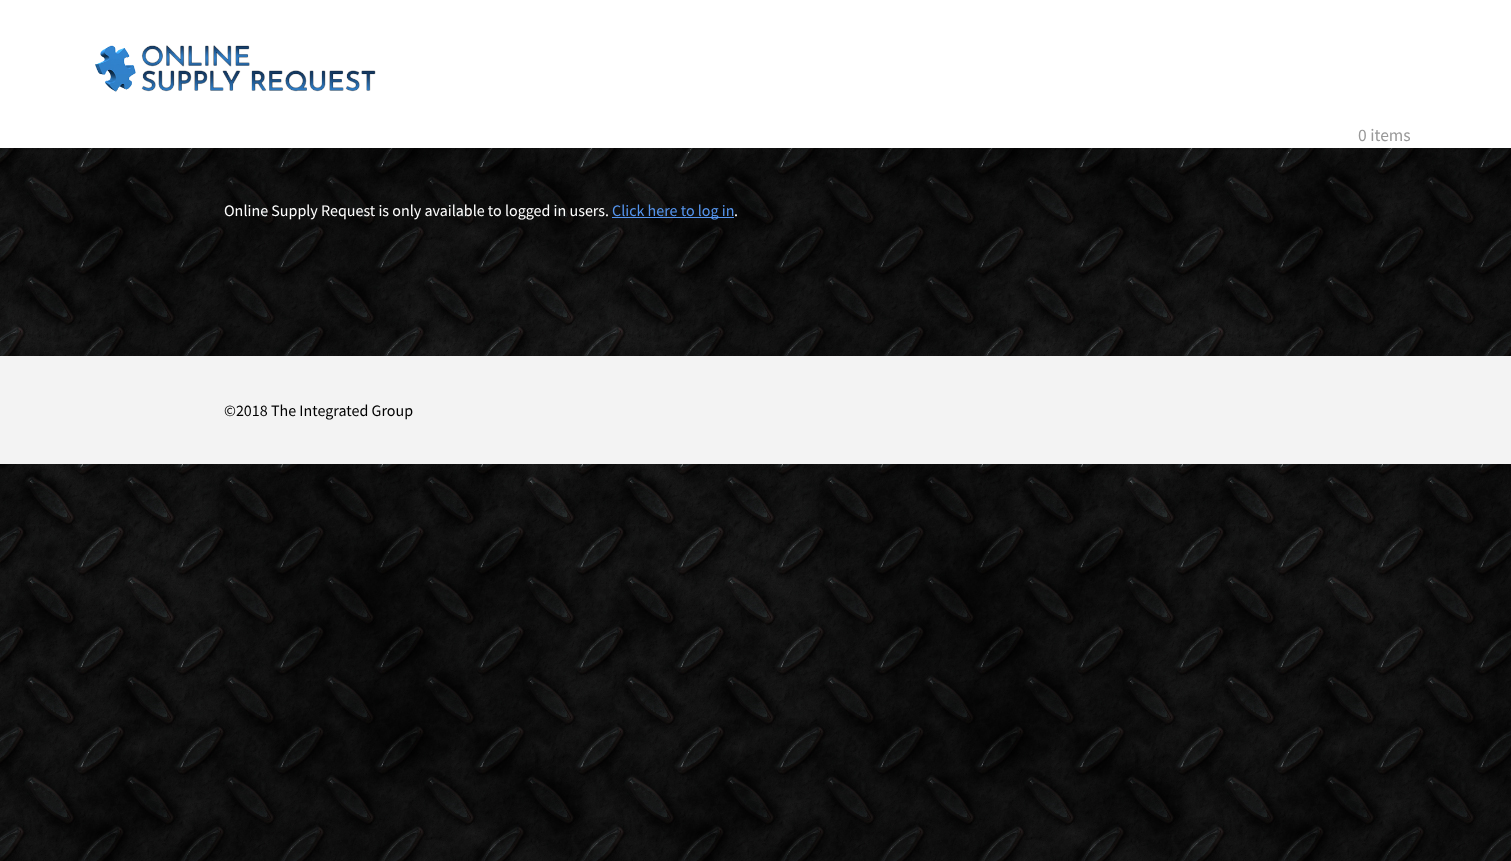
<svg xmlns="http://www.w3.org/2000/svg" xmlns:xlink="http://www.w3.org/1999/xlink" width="1511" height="861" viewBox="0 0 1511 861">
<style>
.cls-1{font:17.5px Source Sans Pro;fill:#999999}
.cls-2{font:16px Source Sans Pro;fill:#ffffff}
.cls-3{font:16px Source Sans Pro;fill:#5696ef}
.cls-4{font:16px Source Sans Pro;fill:#000000}
</style>
<rect width="100%" height="100%" fill="#ffffff"/>
<image xlink:href="image0.png" x="0" y="148" width="1511" height="713"/>
<image xlink:href="image1.png" x="95" y="45" width="281" height="47"/>
<rect fill="#5696ef" x="612" y="217" width="122" height="1"/>
<rect fill="#f3f3f3" x="0" y="356" width="1511" height="108"/>
<text class="cls-1" x="1358" y="141">0 items</text>
<text class="cls-2" x="224" y="216">Online Supply Request is only available to logged in users.</text>
<text class="cls-3" x="612" y="216">Click here to log in</text>
<text class="cls-2" x="734" y="216">.</text>
<text class="cls-4" x="224" y="416">©2018 The Integrated Group</text>
</svg>
